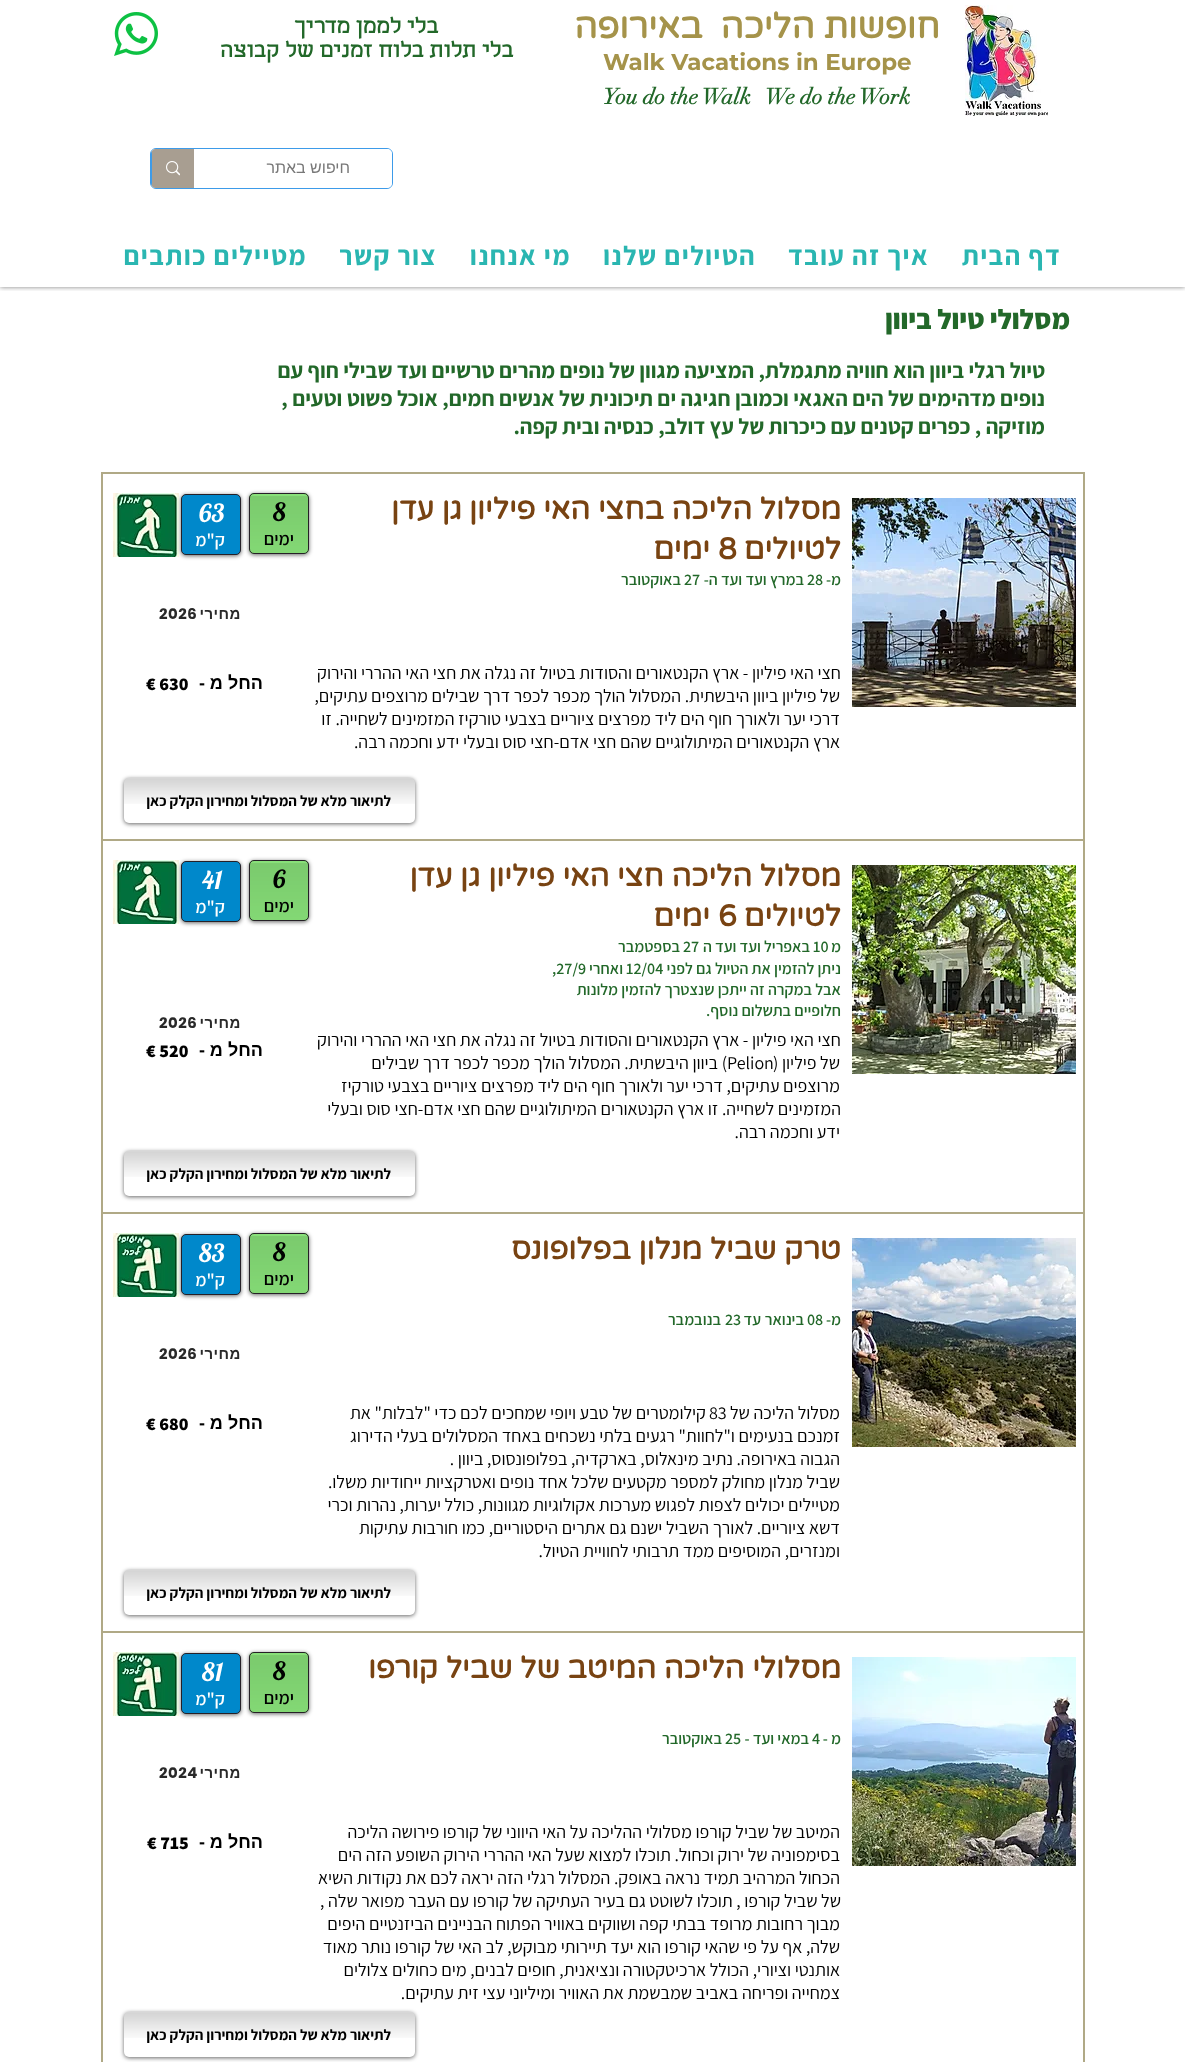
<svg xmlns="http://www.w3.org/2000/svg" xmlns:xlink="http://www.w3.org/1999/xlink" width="1185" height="2062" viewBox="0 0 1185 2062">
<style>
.cls-1{font:bold 35px Varela Round;direction:rtl;fill:#a5934a}
.cls-2{font:bold 23px Montserrat;fill:#a5934a}
.cls-3{font:bold 22px didot;fill:#226829}
.cls-4{font:bold 23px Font;direction:rtl;fill:#226829}
.cls-5{font:16px Liberation Sans;direction:rtl;fill:#787878}
.cls-6{font:bold 27px Assistant;letter-spacing:1.4px;direction:rtl;fill:#2ab6b1}
.cls-7{font:800 28px Assistant;direction:rtl;fill:#226829}
.cls-8{font:bold 22px Assistant;direction:rtl;fill:#226829}
.cls-9{font:bold 30px Varela Round;direction:rtl;fill:#784312}
.cls-10{font:bold 30px Varela Round;fill:#784312}
.cls-11{font:25px Lobster;fill:#000000}
.cls-12{font:600 18px Assistant;direction:rtl;fill:#000000}
.cls-13{font:25px Lobster;fill:#ffffff}
.cls-14{font:600 18px Assistant;direction:rtl;fill:#ffffff}
.cls-15{font:600 16px Assistant;direction:rtl;fill:#226829}
.cls-16{font:600 16px Assistant;fill:#226829}
.cls-17{font:bold 15px Liberation Sans;letter-spacing:0.5px;direction:rtl;fill:#292929}
.cls-18{font:bold 15px Poppins;letter-spacing:0.5px;fill:#292929}
.cls-19{font:18px Assistant;direction:rtl;fill:#000000}
.cls-20{font:bold 18px Liberation Sans;direction:rtl;fill:#000000}
.cls-21{font:800 18px Assistant;fill:#000000}
.cls-22{font:bold 15px Assistant;direction:rtl;fill:#000000}
.cls-23{font:18px Assistant;fill:#000000}
</style>
<defs>
<clipPath id="clip1"><rect x="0" y="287" width="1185" height="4"/></clipPath>
<clipPath id="clip2"><rect x="151" y="149" width="241" height="39" rx="5"/></clipPath>
</defs>
<rect width="100%" height="100%" fill="#ffffff"/>
<g clip-path="url(#clip1)">
<rect fill="#000000" fill-opacity="0.5" filter="blur(2.5px)" x="0" y="0" width="1185" height="287"/>
</g>
<image xlink:href="image0.png" x="965" y="5" width="83" height="111"/>
<image xlink:href="image1.png" x="114" y="12" width="44" height="44"/>
<rect fill="none" stroke="#3d9be9" x="150.5" y="148.5" width="242" height="40" rx="5.5"/>
<rect fill="#ffffff" x="151" y="149" width="241" height="39" rx="5"/>
<path fill="#a89e91" d="M156 149H194V188H156C153 188 151 186 151 183V154C151 151 153 149 156 149Z"/>
<g clip-path="url(#clip2)">
<rect fill="#3d9be9" x="151" y="149" width="1" height="39"/>
</g>
<image xlink:href="image2.png" x="166" y="161" width="14" height="15"/>
<rect fill="none" stroke="#b0a986" stroke-width="2" x="102" y="473" width="982" height="369"/>
<image xlink:href="image3.png" x="852" y="498" width="224" height="209"/>
<rect fill="#000000" fill-opacity="0.6" filter="blur(2px)" x="249" y="494" width="60" height="61" rx="5"/>
<rect fill="#88e079" x="249" y="493" width="60" height="61" rx="5"/>
<image xlink:href="image4.png" x="249" y="496" width="60" height="58"/>
<rect fill="none" stroke="#262027" x="249.5" y="493.5" width="59" height="60" rx="4.5"/>
<image xlink:href="image5.png" x="113" y="493" width="66" height="64"/>
<rect fill="#000000" fill-opacity="0.6" filter="blur(2px)" x="181" y="495" width="60" height="61" rx="5"/>
<rect fill="#0088cb" stroke="#262027" x="181.5" y="494.5" width="59" height="60" rx="4.5"/>
<rect fill="#000000" fill-opacity="0.6" filter="blur(2px)" x="124" y="779" width="291" height="45" rx="5"/>
<rect fill="#ffffff" x="124" y="778" width="291" height="45" rx="5"/>
<image xlink:href="image6.png" x="124" y="778" width="291" height="26"/>
<rect fill="none" stroke="#b0a986" stroke-width="2" x="102" y="840" width="982" height="375"/>
<rect fill="#ffffff" x="103" y="841" width="980" height="2"/>
<image xlink:href="image7.png" x="852" y="865" width="224" height="209"/>
<rect fill="#000000" fill-opacity="0.6" filter="blur(2px)" x="249" y="861" width="60" height="61" rx="5"/>
<rect fill="#88e079" x="249" y="860" width="60" height="61" rx="5"/>
<image xlink:href="image4.png" x="249" y="863" width="60" height="58"/>
<rect fill="none" stroke="#262027" x="249.5" y="860.5" width="59" height="60" rx="4.5"/>
<image xlink:href="image5.png" x="113" y="860" width="66" height="64"/>
<rect fill="#000000" fill-opacity="0.6" filter="blur(2px)" x="181" y="862" width="60" height="61" rx="5"/>
<rect fill="#0088cb" stroke="#262027" x="181.5" y="861.5" width="59" height="60" rx="4.5"/>
<rect fill="#000000" fill-opacity="0.6" filter="blur(2px)" x="124" y="1152" width="291" height="45" rx="5"/>
<rect fill="#ffffff" x="124" y="1151" width="291" height="45" rx="5"/>
<image xlink:href="image6.png" x="124" y="1151" width="291" height="26"/>
<rect fill="none" stroke="#b0a986" stroke-width="2" x="102" y="1213" width="982" height="421"/>
<rect fill="#ffffff" x="103" y="1214" width="980" height="2"/>
<image xlink:href="image8.png" x="852" y="1238" width="224" height="209"/>
<rect fill="#000000" fill-opacity="0.6" filter="blur(2px)" x="249" y="1234" width="60" height="61" rx="5"/>
<rect fill="#88e079" x="249" y="1233" width="60" height="61" rx="5"/>
<image xlink:href="image4.png" x="249" y="1236" width="60" height="58"/>
<rect fill="none" stroke="#262027" x="249.5" y="1233.5" width="59" height="60" rx="4.5"/>
<image xlink:href="image9.png" x="113" y="1233" width="66" height="64"/>
<rect fill="#000000" fill-opacity="0.6" filter="blur(2px)" x="181" y="1235" width="60" height="61" rx="5"/>
<rect fill="#0088cb" stroke="#262027" x="181.5" y="1234.5" width="59" height="60" rx="4.5"/>
<rect fill="#000000" fill-opacity="0.6" filter="blur(2px)" x="124" y="1571" width="291" height="45" rx="5"/>
<rect fill="#ffffff" x="124" y="1570" width="291" height="45" rx="5"/>
<image xlink:href="image6.png" x="124" y="1570" width="291" height="26"/>
<rect fill="none" stroke="#b0a986" stroke-width="2" x="102" y="1632" width="982" height="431"/>
<rect fill="#ffffff" x="103" y="1633" width="980" height="2"/>
<image xlink:href="image10.png" x="852" y="1657" width="224" height="209"/>
<rect fill="#000000" fill-opacity="0.6" filter="blur(2px)" x="249" y="1653" width="60" height="61" rx="5"/>
<rect fill="#88e079" x="249" y="1652" width="60" height="61" rx="5"/>
<image xlink:href="image4.png" x="249" y="1655" width="60" height="58"/>
<rect fill="none" stroke="#262027" x="249.5" y="1652.5" width="59" height="60" rx="4.5"/>
<image xlink:href="image9.png" x="113" y="1652" width="66" height="64"/>
<rect fill="#000000" fill-opacity="0.6" filter="blur(2px)" x="181" y="1654" width="60" height="61" rx="5"/>
<rect fill="#0088cb" stroke="#262027" x="181.5" y="1653.5" width="59" height="60" rx="4.5"/>
<rect fill="#000000" fill-opacity="0.6" filter="blur(2px)" x="124" y="2013" width="291" height="45" rx="5"/>
<rect fill="#ffffff" x="124" y="2012" width="291" height="45" rx="5"/>
<image xlink:href="image6.png" x="124" y="2012" width="291" height="26"/>
<text class="cls-1" xml:space="preserve" x="940" y="38">חופשות הליכה  באירופה</text>
<text class="cls-2" x="603" y="70">Walk Vacations in Europe</text>
<text class="cls-3" xml:space="preserve" x="603" y="104">You do the Walk   We do the Work</text>
<text class="cls-4" x="438" y="33">בלי לממן מדריך</text>
<text class="cls-4" x="513" y="57">בלי תלות בלוח זמנים של קבוצה</text>
<text class="cls-5" x="350" y="173">חיפוש באתר</text>
<text class="cls-6" x="1061" y="265">דף הבית</text>
<text class="cls-6" x="929" y="265">איך זה עובד</text>
<text class="cls-6" x="756" y="265">הטיולים שלנו</text>
<text class="cls-6" x="571" y="265">מי אנחנו</text>
<text class="cls-6" x="437" y="265">צור קשר</text>
<text class="cls-6" x="307" y="265">מטיילים כותבים</text>
<text class="cls-7" x="1070" y="329">מסלולי טיול ביוון</text>
<text class="cls-8"><tspan x="1045" y="378">טיול רגלי ביוון הוא חוויה מתגמלת, המציעה מגוון של נופים מהרים טרשיים ועד שבילי חוף עם</tspan><tspan x="1045" y="406">נופים מדהימים של הים האגאי וכמובן חגיגה ים תיכונית של אנשים חמים, אוכל פשוט וטעים ,</tspan><tspan x="1045" y="434">מוזיקה , כפרים קטנים עם כיכרות של עץ דולב, כנסיה ובית קפה.</tspan></text>
<text class="cls-9" x="841" y="519">מסלול הליכה בחצי האי פיליון</text>
<text class="cls-9" x="462" y="519">גן עדן</text>
<text class="cls-9" x="841" y="559">לטיולים</text>
<text class="cls-10" x="718" y="559">8</text>
<text class="cls-9" x="710" y="559">ימים</text>
<text class="cls-11" x="273" y="521">8</text>
<text class="cls-12" x="294" y="545">ימים</text>
<text class="cls-13" x="199" y="522">63</text>
<text class="cls-14" x="225" y="546">ק"מ</text>
<text class="cls-15" x="841" y="585">מ-</text>
<text class="cls-16" x="807" y="585">28</text>
<text class="cls-15" x="804" y="585">במרץ ועד ועד ה-</text>
<text class="cls-16" x="684" y="585">27</text>
<text class="cls-15" x="681" y="585">באוקטובר</text>
<text class="cls-17" x="241" y="619">מחירי</text>
<text class="cls-18" x="159" y="619">2026</text>
<text class="cls-19" x="841" y="679">חצי האי פיליון - ארץ הקנטאורים והסודות בטיול זה נגלה את חצי האי ההררי והירוק</text>
<text class="cls-19"><tspan x="840" y="702">של פיליון ביוון היבשתית. המסלול הולך מכפר לכפר דרך שבילים מרוצפים עתיקים,</tspan><tspan x="840" y="725">דרכי יער ולאורך חוף הים ליד מפרצים ציוריים בצבעי טורקיז המזמינים לשחייה. זו</tspan><tspan x="840" y="748">ארץ הקנטאורים המיתולוגיים שהם חצי אדם-חצי סוס ובעלי ידע וחכמה רבה.</tspan></text>
<text class="cls-20" x="263" y="689">החל מ -</text>
<text class="cls-21" x="146" y="690">€ 630</text>
<text class="cls-22" x="391" y="806">לתיאור מלא של המסלול ומחירון הקלק כאן</text>
<text class="cls-9"><tspan x="841" y="886">מסלול הליכה חצי האי פיליון גן עדן</tspan><tspan x="841" y="926">לטיולים</tspan></text>
<text class="cls-10" x="718" y="926">6</text>
<text class="cls-9" x="710" y="926">ימים</text>
<text class="cls-11" x="273" y="888">6</text>
<text class="cls-12" x="294" y="912">ימים</text>
<text class="cls-13" x="202" y="889">41</text>
<text class="cls-14" x="225" y="913">ק"מ</text>
<text class="cls-15" x="841" y="952">מ</text>
<text class="cls-16" x="813" y="952">10</text>
<text class="cls-15" x="810" y="952">באפריל ועד ועד ה</text>
<text class="cls-16" x="683" y="952">27</text>
<text class="cls-15" x="680" y="952">בספטמבר</text>
<text class="cls-15" x="841" y="974">ניתן להזמין את הטיול גם לפני</text>
<text class="cls-16" x="626" y="974">12/04</text>
<text class="cls-15" x="623" y="974">ואחרי</text>
<text class="cls-16" x="552" y="974">,27/9</text>
<text class="cls-15"><tspan x="841" y="995">אבל במקרה זה ייתכן שנצטרך להזמין מלונות</tspan><tspan x="841" y="1016">חלופיים בתשלום נוסף.</tspan></text>
<text class="cls-17" x="241" y="1028">מחירי</text>
<text class="cls-18" x="159" y="1028">2026</text>
<text class="cls-19" x="841" y="1046">חצי האי פיליון - ארץ הקנטאורים והסודות בטיול זה נגלה את חצי האי ההררי והירוק</text>
<text class="cls-19" x="840" y="1069">של פיליון (</text>
<text class="cls-23" x="727" y="1069">Pelion</text>
<text class="cls-19" x="727" y="1069">) ביוון היבשתית. המסלול הולך מכפר לכפר דרך שבילים</text>
<text class="cls-19" x="840" y="1092">מרוצפים עתיקים, דרכי יער ולאורך חוף הים ליד מפרצים ציוריים בצבעי טורקיז</text>
<text class="cls-19" x="841" y="1115">המזמינים לשחייה. זו ארץ הקנטאורים המיתולוגיים שהם חצי אדם-חצי סוס ובעלי</text>
<text class="cls-19" x="840" y="1138">ידע וחכמה רבה.</text>
<text class="cls-20" x="263" y="1056">החל מ -</text>
<text class="cls-21" x="146" y="1057">€ 520</text>
<text class="cls-22" x="391" y="1179">לתיאור מלא של המסלול ומחירון הקלק כאן</text>
<text class="cls-9" x="841" y="1259">טרק שביל מנלון בפלופונס</text>
<text class="cls-11" x="273" y="1261">8</text>
<text class="cls-12" x="294" y="1285">ימים</text>
<text class="cls-13" x="199" y="1262">83</text>
<text class="cls-14" x="225" y="1286">ק"מ</text>
<text class="cls-15" x="841" y="1325">מ-</text>
<text class="cls-16" x="807" y="1325">08</text>
<text class="cls-15" x="804" y="1325">בינואר</text>
<text class="cls-15" x="761" y="1325">עד</text>
<text class="cls-16" x="725" y="1325">23</text>
<text class="cls-15" x="721" y="1325">בנובמבר</text>
<text class="cls-17" x="241" y="1359">מחירי</text>
<text class="cls-18" x="159" y="1359">2026</text>
<text class="cls-19" x="840" y="1419">מסלול הליכה של</text>
<text class="cls-23" x="709" y="1419">83</text>
<text class="cls-19" x="706" y="1419">קילומטרים של טבע ויופי שמחכים לכם כדי "לבלות" את</text>
<text class="cls-19"><tspan x="840" y="1442">זמנכם בנעימים ו"לחוות" רגעים בלתי נשכחים באחד המסלולים בעלי הדירוג</tspan><tspan x="840" y="1465">הגבוה באירופה. נתיב מינאלוס, בארקדיה, בפלופונסוס, ביוון .</tspan><tspan x="840" y="1488">שביל מנלון מחולק למספר מקטעים שלכל אחד נופים ואטרקציות ייחודיות משלו.</tspan><tspan x="840" y="1511">מטיילים יכולים לצפות לפגוש מערכות אקולוגיות מגוונות, כולל יערות, נהרות וכרי</tspan><tspan x="840" y="1534">דשא ציוריים. לאורך השביל ישנם גם אתרים היסטוריים, כמו חורבות עתיקות</tspan><tspan x="840" y="1557">ומנזרים, המוסיפים ממד תרבותי לחוויית הטיול.</tspan></text>
<text class="cls-20" x="263" y="1429">החל מ -</text>
<text class="cls-21" x="146" y="1430">€ 680</text>
<text class="cls-22" x="391" y="1598">לתיאור מלא של המסלול ומחירון הקלק כאן</text>
<text class="cls-9" x="841" y="1678">מסלולי הליכה המיטב של שביל קורפו</text>
<text class="cls-11" x="273" y="1680">8</text>
<text class="cls-12" x="294" y="1704">ימים</text>
<text class="cls-13" x="202" y="1681">81</text>
<text class="cls-14" x="225" y="1705">ק"מ</text>
<text class="cls-15" x="841" y="1744">מ -</text>
<text class="cls-16" x="812" y="1744">4</text>
<text class="cls-15" x="809" y="1744">במאי ועד -</text>
<text class="cls-16" x="725" y="1744">25</text>
<text class="cls-15" x="722" y="1744">באוקטובר</text>
<text class="cls-17" x="241" y="1778">מחירי</text>
<text class="cls-18" x="159" y="1778">2024</text>
<text class="cls-19"><tspan x="840" y="1838">המיטב של שביל קורפו מסלולי ההליכה על האי היווני של קורפו פירושה הליכה</tspan><tspan x="840" y="1861">בסימפוניה של ירוק וכחול. תוכלו למצוא שעל האי ההררי הירוק השופע הזה הים</tspan><tspan x="840" y="1884">הכחול המרהיב תמיד נראה באופק. המסלול רגלי הזה יראה לכם את נקודות השיא</tspan></text>
<text class="cls-19" x="841" y="1907">של שביל קורפו , תוכלו לשוטט גם בעיר העתיקה של קורפו עם העבר מפואר שלה ,</text>
<text class="cls-19"><tspan x="840" y="1930">מבוך רחובות מרופד בבתי קפה ושווקים באוויר הפתוח הבניינים הביזנטיים היפים</tspan><tspan x="840" y="1953">שלה, אף על פי שהאי קורפו הוא יעד תיירותי מבוקש, לב האי של קורפו נותר מאוד</tspan><tspan x="840" y="1976">אותנטי וציורי, הכולל ארכיטקטורה ונציאנית, חופים לבנים, מים כחולים צלולים</tspan><tspan x="840" y="1999">צמחייה ופריחה באביב שמבשמת את האוויר ומיליוני עצי זית עתיקים.</tspan></text>
<text class="cls-20" x="263" y="1848">החל מ -</text>
<text class="cls-21" x="147" y="1849">€ 715</text>
<text class="cls-22" x="391" y="2040">לתיאור מלא של המסלול ומחירון הקלק כאן</text>
</svg>
